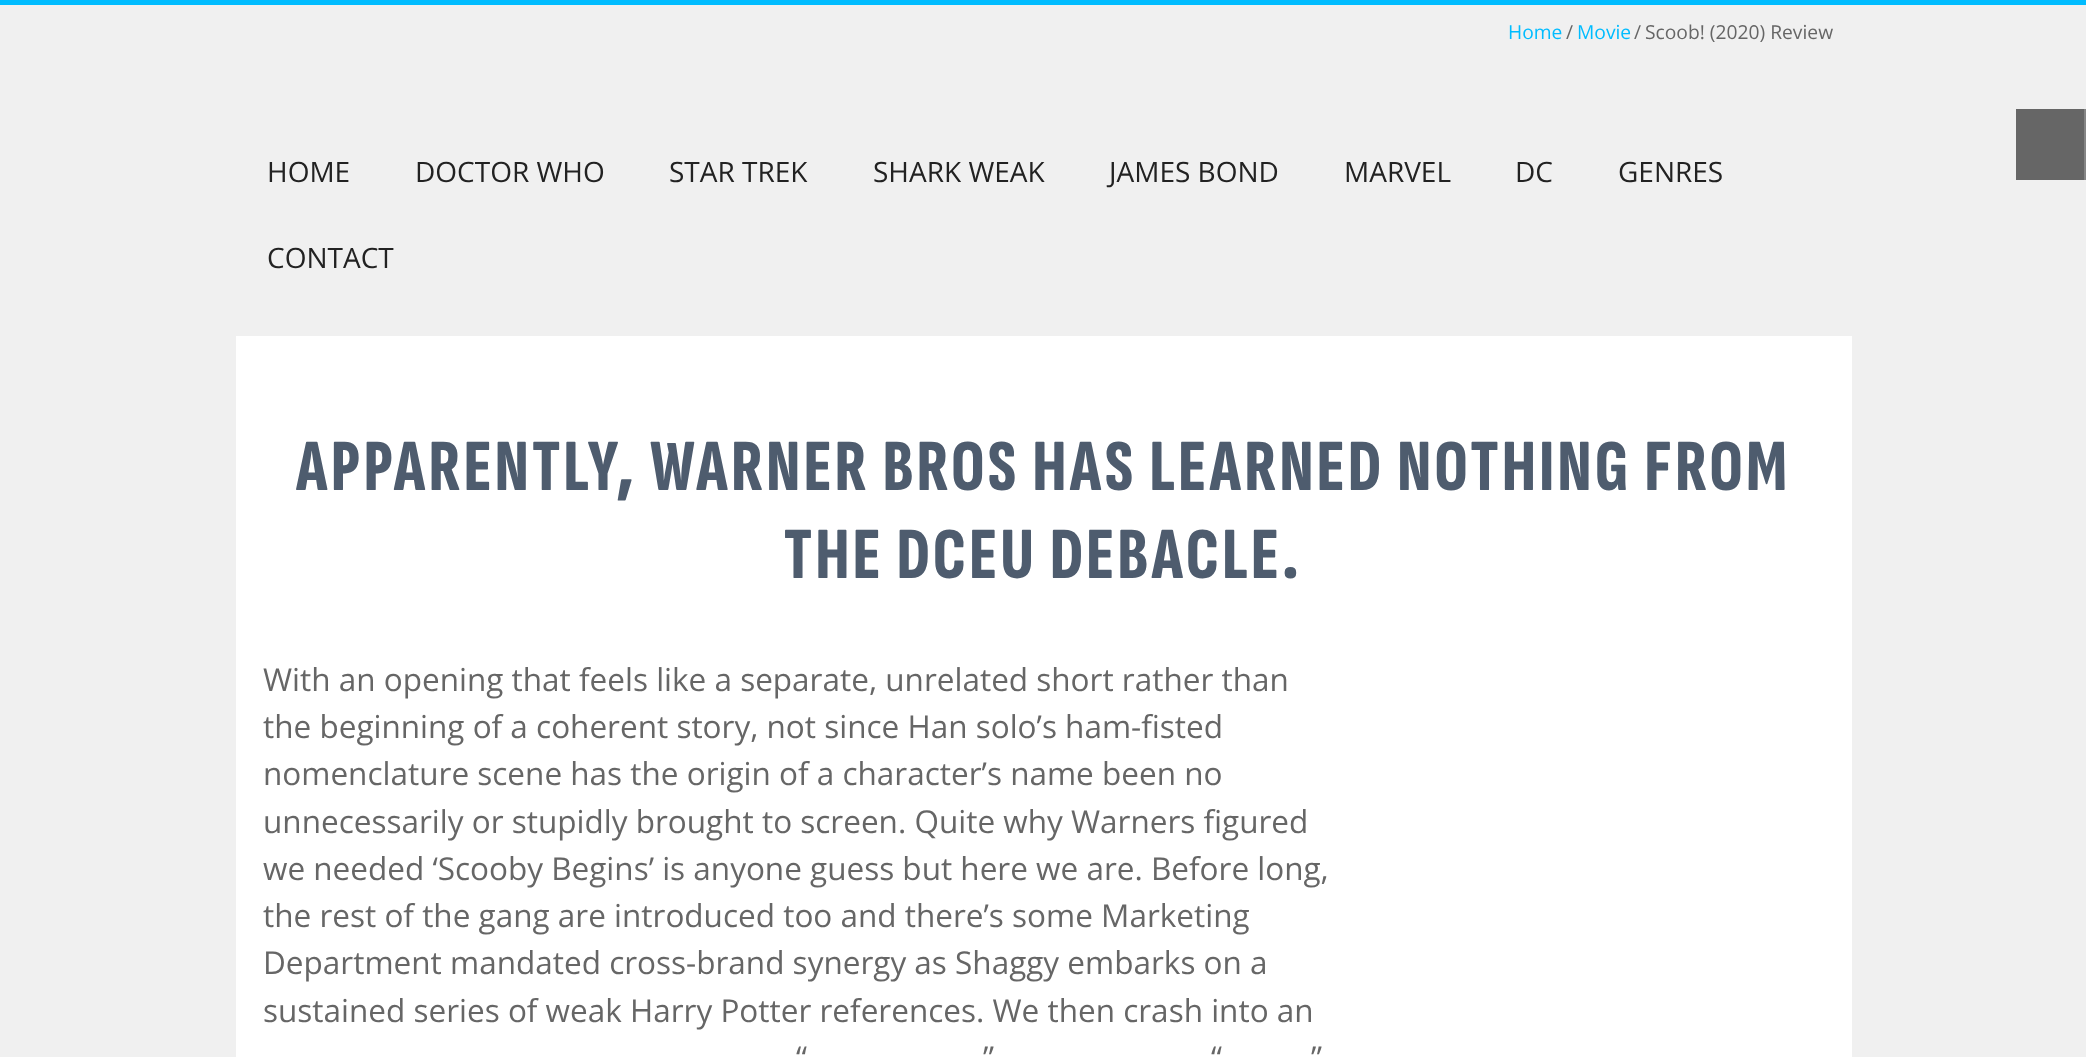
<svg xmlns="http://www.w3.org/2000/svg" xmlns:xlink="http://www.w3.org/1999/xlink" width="2086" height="1057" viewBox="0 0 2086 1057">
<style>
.cls-1{font:19.25px Open Sans;fill:#00bcff}
.cls-2{font:19.25px Open Sans;fill:#666666}
.cls-3{font:28px Open Sans;fill:#222222}
.cls-4{font:800 73.5px Sofia Sans Extra Condensed;letter-spacing:3.5px;fill:#4e5c6e}
.cls-5{font:31.5px Open Sans;fill:#666666}
</style>
<rect width="100%" height="100%" fill="#f0f0f0"/>
<rect fill="#00bcff" x="0" y="0" width="2086" height="5"/>
<rect fill="#ffffff" x="236" y="336" width="1616" height="721"/>
<rect fill="#666666" x="2016" y="109" width="68" height="71"/>
<rect fill="#858585" x="2084" y="109" width="2" height="71"/>
<text class="cls-1" x="1508" y="39">Home</text>
<text class="cls-2" x="1566" y="39">/</text>
<text class="cls-1" x="1577" y="39">Movie</text>
<text class="cls-2" x="1634" y="39">/</text>
<text class="cls-2" x="1645" y="39">Scoob! (2020) Review</text>
<text class="cls-3" x="267" y="182">HOME</text>
<text class="cls-3" x="415" y="182">DOCTOR WHO</text>
<text class="cls-3" x="669" y="182">STAR TREK</text>
<text class="cls-3" x="873" y="182">SHARK WEAK</text>
<text class="cls-3" x="1109" y="182">JAMES BOND</text>
<text class="cls-3" x="1344" y="182">MARVEL</text>
<text class="cls-3" x="1515" y="182">DC</text>
<text class="cls-3" x="1618" y="182">GENRES</text>
<text class="cls-3" x="267" y="268">CONTACT</text>
<text class="cls-4" x="296" y="490">APPARENTLY, WARNER BROS HAS LEARNED NOTHING FROM</text>
<text class="cls-4" x="784" y="578">THE DCEU DEBACLE.</text>
<text class="cls-5"><tspan x="263" y="691">With an opening that feels like a separate, unrelated short rather than</tspan><tspan x="263" y="738">the beginning of a coherent story, not since Han solo’s ham-fisted</tspan><tspan x="263" y="785">nomenclature scene has the origin of a character’s name been no</tspan><tspan x="263" y="833">unnecessarily or stupidly brought to screen. Quite why Warners figured</tspan><tspan x="263" y="880">we needed ‘Scooby Begins’ is anyone guess but here we are. Before long,</tspan><tspan x="263" y="927">the rest of the gang are introduced too and there’s some Marketing</tspan><tspan x="263" y="974">Department mandated cross-brand synergy as Shaggy embarks on a</tspan><tspan x="263" y="1022">sustained series of weak Harry Potter references. We then crash into an</tspan></text>
<text class="cls-5" x="796" y="1069">“</text>
<text class="cls-5" x="983" y="1069">”</text>
<text class="cls-5" x="1211" y="1069">“</text>
<text class="cls-5" x="1311" y="1069">”</text>
</svg>
